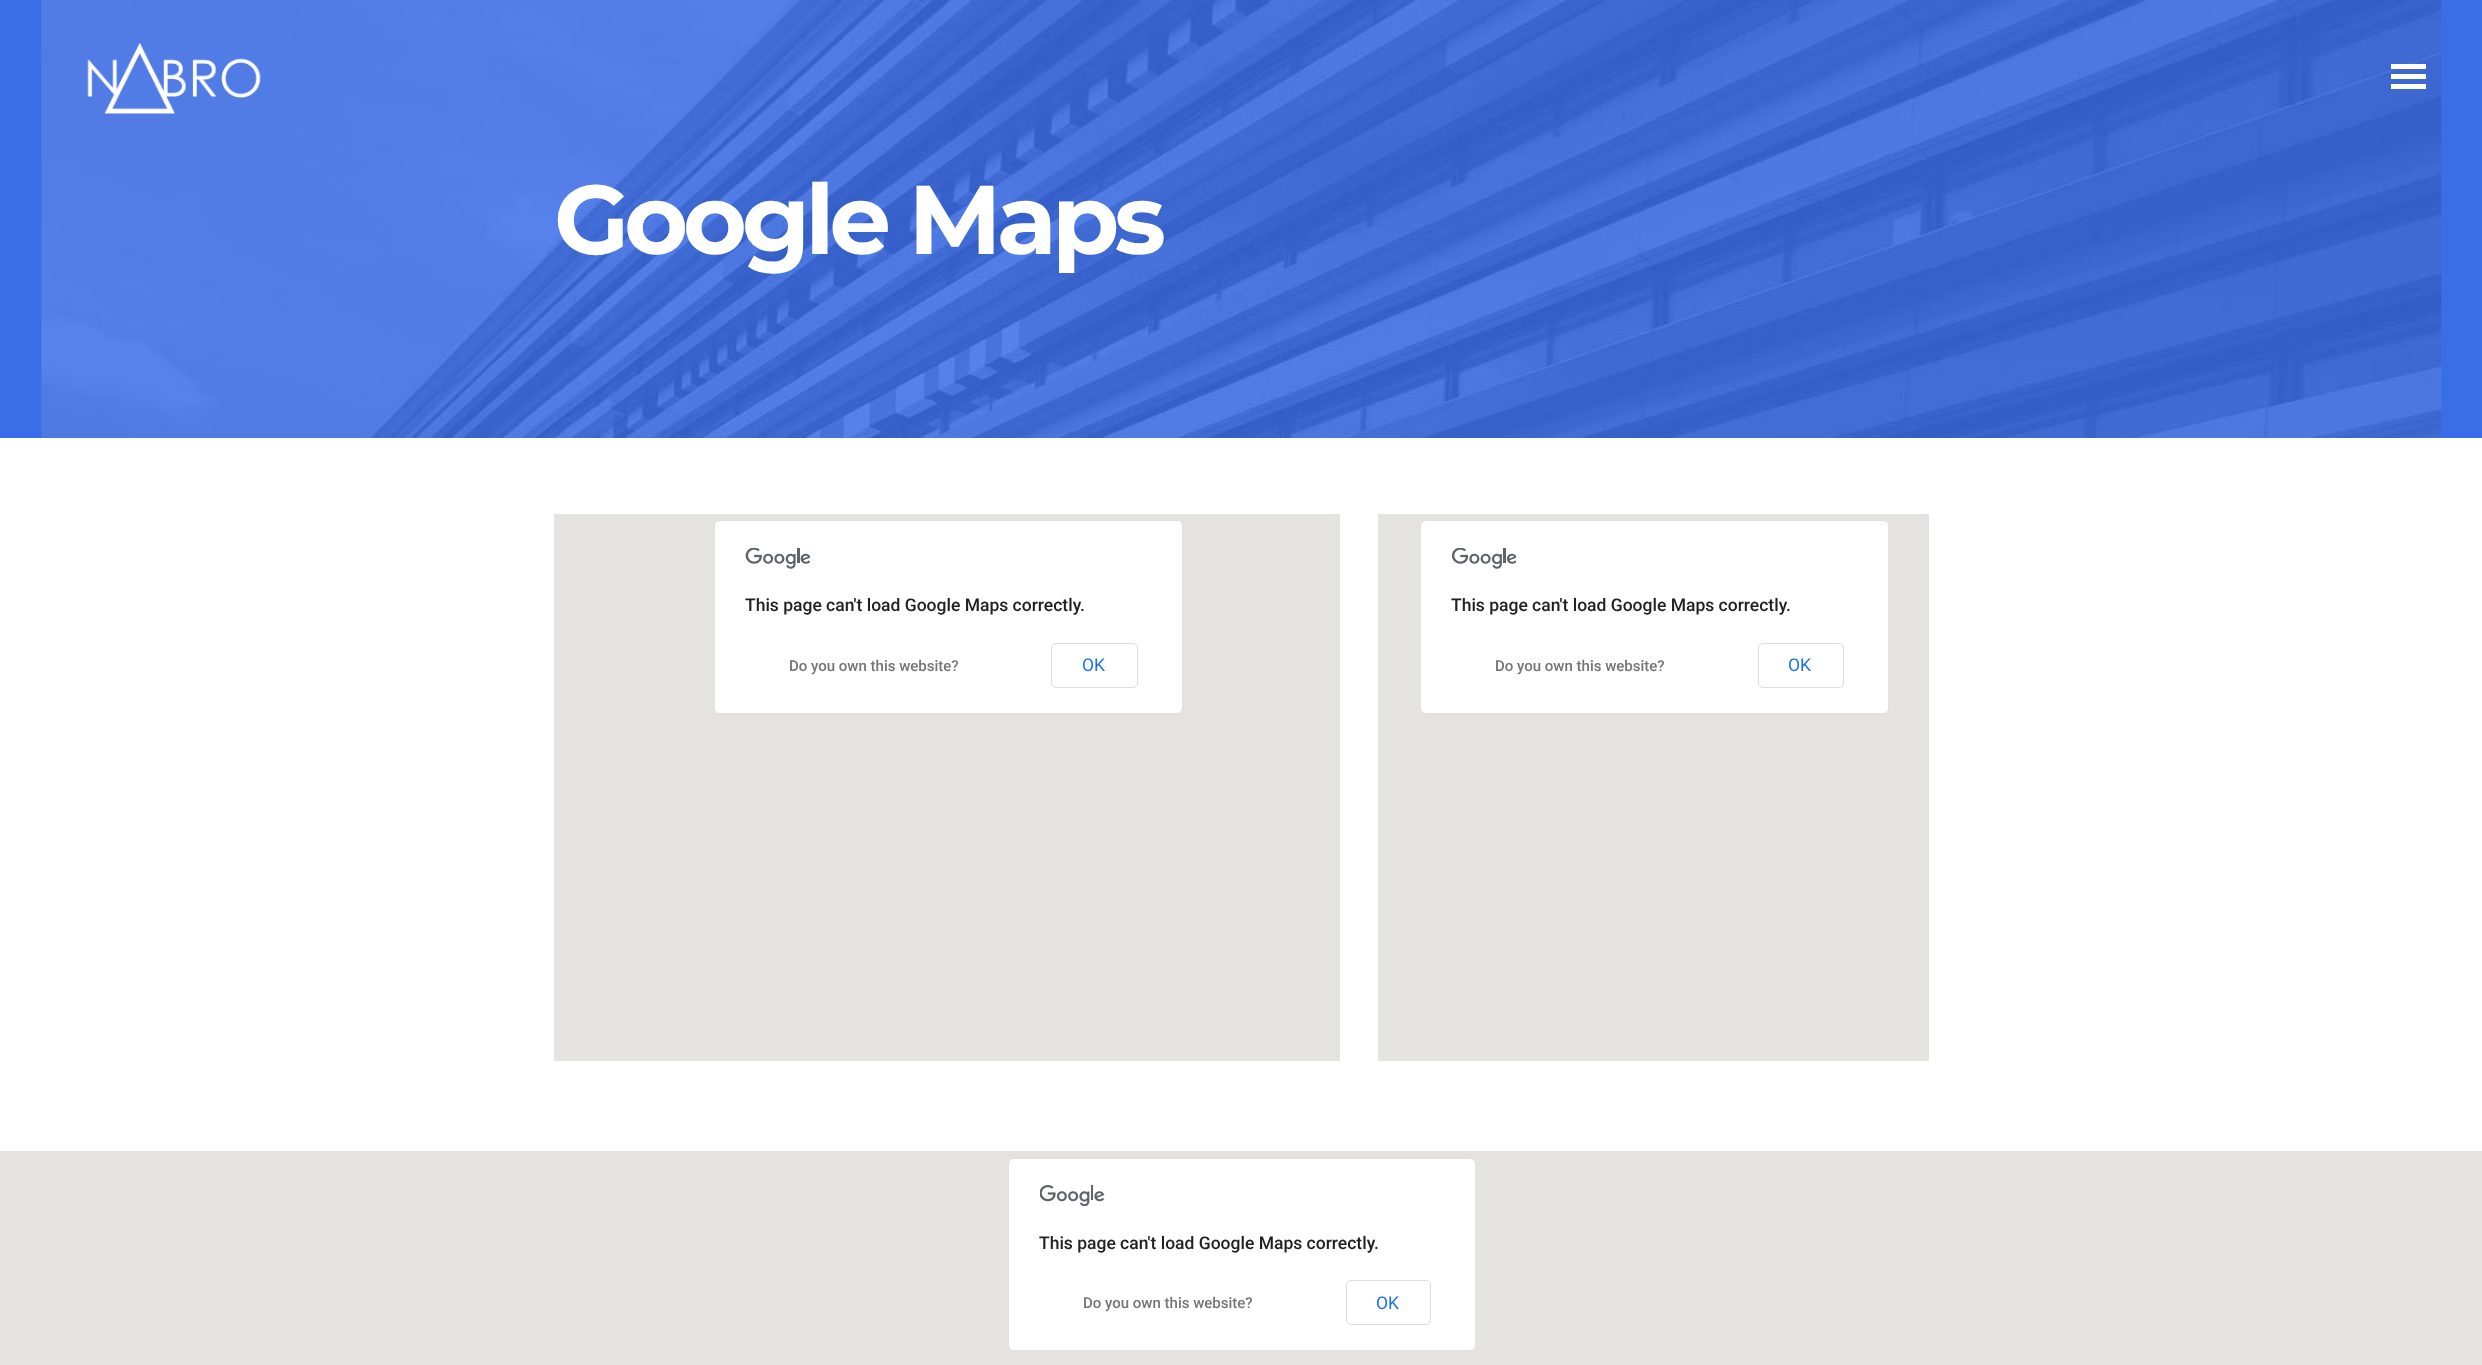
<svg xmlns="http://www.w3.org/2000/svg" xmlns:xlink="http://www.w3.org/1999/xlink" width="2482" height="1365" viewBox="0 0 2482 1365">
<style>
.cls-1{font:bold 97.5px Montserrat;letter-spacing:-5px;fill:#ffffff}
.cls-2{font:500 17.5px Roboto;fill:#212121}
.cls-3{font:500 15px Roboto;fill:#757575}
.cls-4{font:17.5px Roboto;fill:#1a73e8}
</style>
<rect width="100%" height="100%" fill="#ffffff"/>
<rect fill="#3a6ee8" x="0" y="0" width="2482" height="438"/>
<image xlink:href="image1.png" x="41" y="0" width="2401" height="438"/>
<image xlink:href="image0.png" x="87" y="42" width="174" height="72"/>
<rect fill="#ffffff" x="2391" y="64" width="35" height="5"/>
<rect fill="#ffffff" x="2391" y="74" width="35" height="5"/>
<rect fill="#ffffff" x="2391" y="84" width="35" height="5"/>
<rect fill="#e5e3df" x="554" y="514" width="786" height="547"/>
<rect fill="#ffffff" x="714" y="520" width="469" height="194" rx="6"/>
<rect fill="none" stroke="#000000" stroke-opacity="0.12" x="714.5" y="520.5" width="468" height="193" rx="5.5"/>
<image xlink:href="image2.png" x="745" y="548" width="65" height="21"/>
<rect fill="none" stroke="#dadce0" x="1051.5" y="643.5" width="86" height="44" rx="4.5"/>
<rect fill="#e5e3df" x="1378" y="514" width="551" height="547"/>
<rect fill="#ffffff" x="1420" y="520" width="469" height="194" rx="6"/>
<rect fill="none" stroke="#000000" stroke-opacity="0.12" x="1420.5" y="520.5" width="468" height="193" rx="5.5"/>
<image xlink:href="image3.png" x="1451" y="548" width="65" height="21"/>
<rect fill="none" stroke="#dadce0" x="1758.5" y="643.5" width="85" height="44" rx="4.5"/>
<rect fill="#e5e3df" x="0" y="1151" width="2482" height="214"/>
<rect fill="#ffffff" x="1008" y="1158" width="468" height="193" rx="6"/>
<rect fill="none" stroke="#000000" stroke-opacity="0.12" x="1008.5" y="1158.5" width="467" height="192" rx="5.5"/>
<image xlink:href="image4.png" x="1040" y="1185" width="65" height="21"/>
<rect fill="none" stroke="#dadce0" x="1346.5" y="1280.5" width="84" height="44" rx="4.5"/>
<text class="cls-1" x="554" y="254">Google Maps</text>
<text class="cls-2" x="745" y="611">This page can't load Google Maps correctly.</text>
<text class="cls-3" x="789" y="671">Do you own this website?</text>
<text class="cls-4" x="1082" y="671">OK</text>
<text class="cls-2" x="1451" y="611">This page can't load Google Maps correctly.</text>
<text class="cls-3" x="1495" y="671">Do you own this website?</text>
<text class="cls-4" x="1788" y="671">OK</text>
<text class="cls-2" x="1039" y="1249">This page can't load Google Maps correctly.</text>
<text class="cls-3" x="1083" y="1308">Do you own this website?</text>
<text class="cls-4" x="1376" y="1309">OK</text>
</svg>
